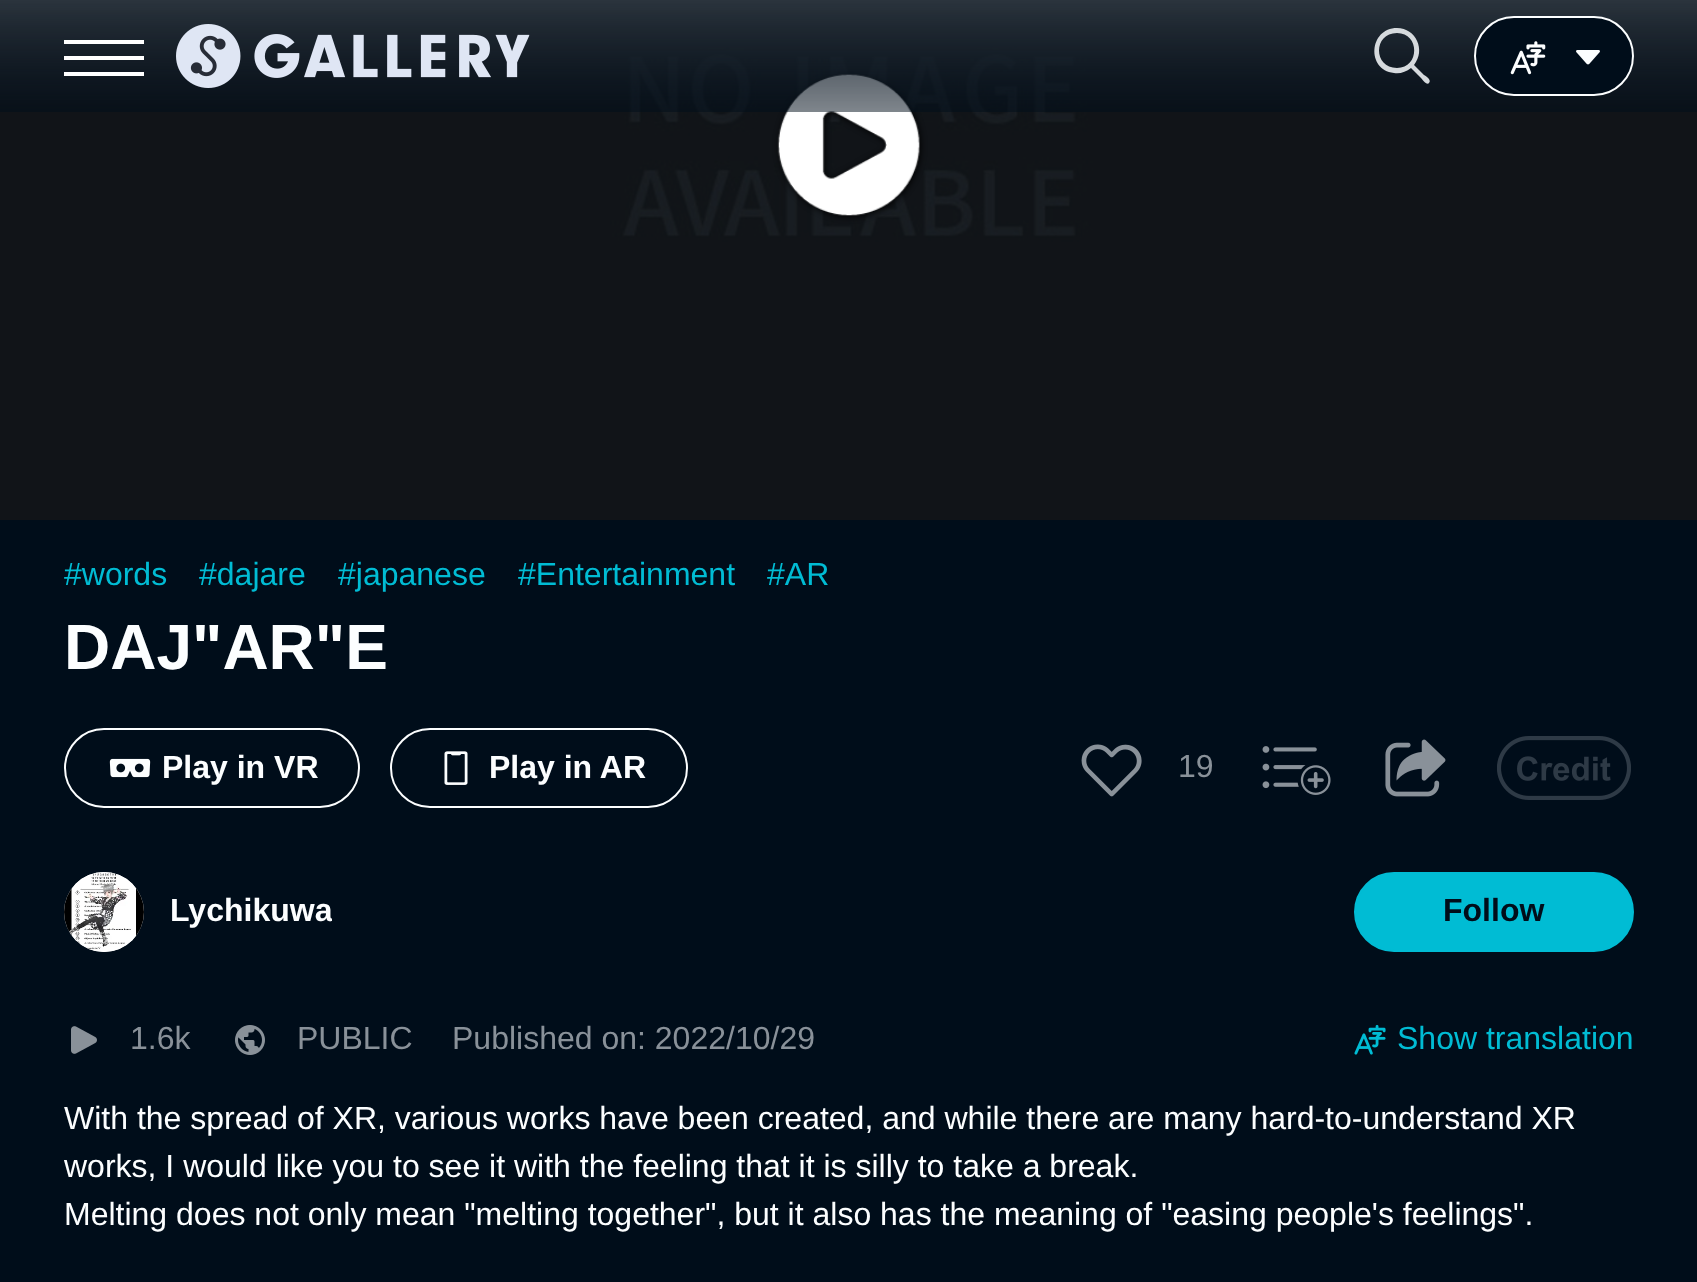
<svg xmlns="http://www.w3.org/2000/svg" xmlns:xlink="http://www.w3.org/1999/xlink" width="1697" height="1282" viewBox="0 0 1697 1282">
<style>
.cls-1{font:32px Liberation Sans;fill:#00bcd4}
.cls-2{font:bold 64px Liberation Sans;fill:#fcfeff}
.cls-3{font:bold 32px Liberation Sans;fill:#fcfeff}
.cls-4{font:32px Liberation Sans;fill:#899199}
.cls-5{font:bold 32px Liberation Sans;fill:#000d1a}
.cls-6{font:32px Liberation Sans;fill:#fcfeff}
</style>
<defs>
<clipPath id="clip1"><rect x="170" y="888" width="162" height="48"/></clipPath>
</defs>
<rect width="100%" height="100%" fill="#000d1a"/>
<image xlink:href="image3.png" x="0" y="0" width="1697" height="520"/>
<rect fill="#ffffff" x="64" y="40" width="80" height="4"/>
<rect fill="#ffffff" x="64" y="56" width="80" height="4"/>
<rect fill="#ffffff" x="64" y="72" width="80" height="4"/>
<image xlink:href="image0.png" x="176" y="24" width="354" height="64"/>
<path fill="#d6dadd" d="M1397 28C1416 28 1426 50 1414 65L1424 75C1426 76 1432 80 1429 83C1427 86 1422 79 1421 78L1411 68C1406 72 1400 74 1394 73C1366 70 1369 28 1397 28ZM1397 33C1373 33 1373 68 1397 68C1420 68 1420 33 1397 33Z"/>
<rect fill="#000d1a" stroke="#fcfeff" stroke-width="2" x="1475" y="17" width="158" height="78" rx="39"/>
<image xlink:href="image1.png" x="1510" y="41" width="36" height="34"/>
<image xlink:href="image2.png" x="1576" y="50" width="24" height="15"/>
<rect fill="none" stroke="#fcfeff" stroke-width="2" x="65" y="729" width="294" height="78" rx="39"/>
<image xlink:href="image4.png" x="109" y="758" width="42" height="20"/>
<rect fill="none" stroke="#fcfeff" stroke-width="2" x="391" y="729" width="296" height="78" rx="39"/>
<image xlink:href="image5.png" x="444" y="751" width="24" height="34"/>
<image xlink:href="image6.png" x="1081" y="744" width="61" height="53"/>
<image xlink:href="image7.png" x="1262" y="746" width="69" height="49"/>
<image xlink:href="image8.png" x="1385" y="739" width="61" height="58"/>
<image xlink:href="image9.png" x="1497" y="736" width="134" height="64"/>
<circle fill="#ffffff" cx="104" cy="912" r="40"/>
<image xlink:href="image10.png" x="64" y="872" width="80" height="80"/>
<rect fill="#00bcd4" stroke="#00bcd4" stroke-width="2" x="1355" y="873" width="278" height="78" rx="39"/>
<image xlink:href="image11.png" x="71" y="1026" width="26" height="28"/>
<image xlink:href="image12.png" x="235" y="1025" width="30" height="30"/>
<image xlink:href="image13.png" x="1354" y="1024" width="32" height="31"/>
<text class="cls-1" x="64" y="585">#words</text>
<text class="cls-1" x="199" y="585">#dajare</text>
<text class="cls-1" x="338" y="585">#japanese</text>
<text class="cls-1" x="518" y="585">#Entertainment</text>
<text class="cls-1" x="767" y="585">#AR</text>
<text class="cls-2" x="64" y="669">DAJ"AR"E</text>
<text class="cls-3" x="162" y="778">Play in VR</text>
<text class="cls-3" x="489" y="778">Play in AR</text>
<text class="cls-4" x="1178" y="777">19</text>
<g clip-path="url(#clip1)">
<text class="cls-3" x="170" y="921">Lychikuwa</text>
</g>
<text class="cls-5" x="1443" y="921">Follow</text>
<text class="cls-4" x="130" y="1049">1.6k</text>
<text class="cls-4" x="297" y="1049">PUBLIC</text>
<text class="cls-4" x="452" y="1049">Published on: 2022/10/29</text>
<text class="cls-1" x="1397" y="1049">Show translation</text>
<text class="cls-6"><tspan x="64" y="1129">With the spread of XR, various works have been created, and while there are many hard-to-understand XR</tspan><tspan x="64" y="1177">works, I would like you to see it with the feeling that it is silly to take a break.</tspan><tspan x="64" y="1225">Melting does not only mean "melting together", but it also has the meaning of "easing people's feelings".</tspan></text>
</svg>
